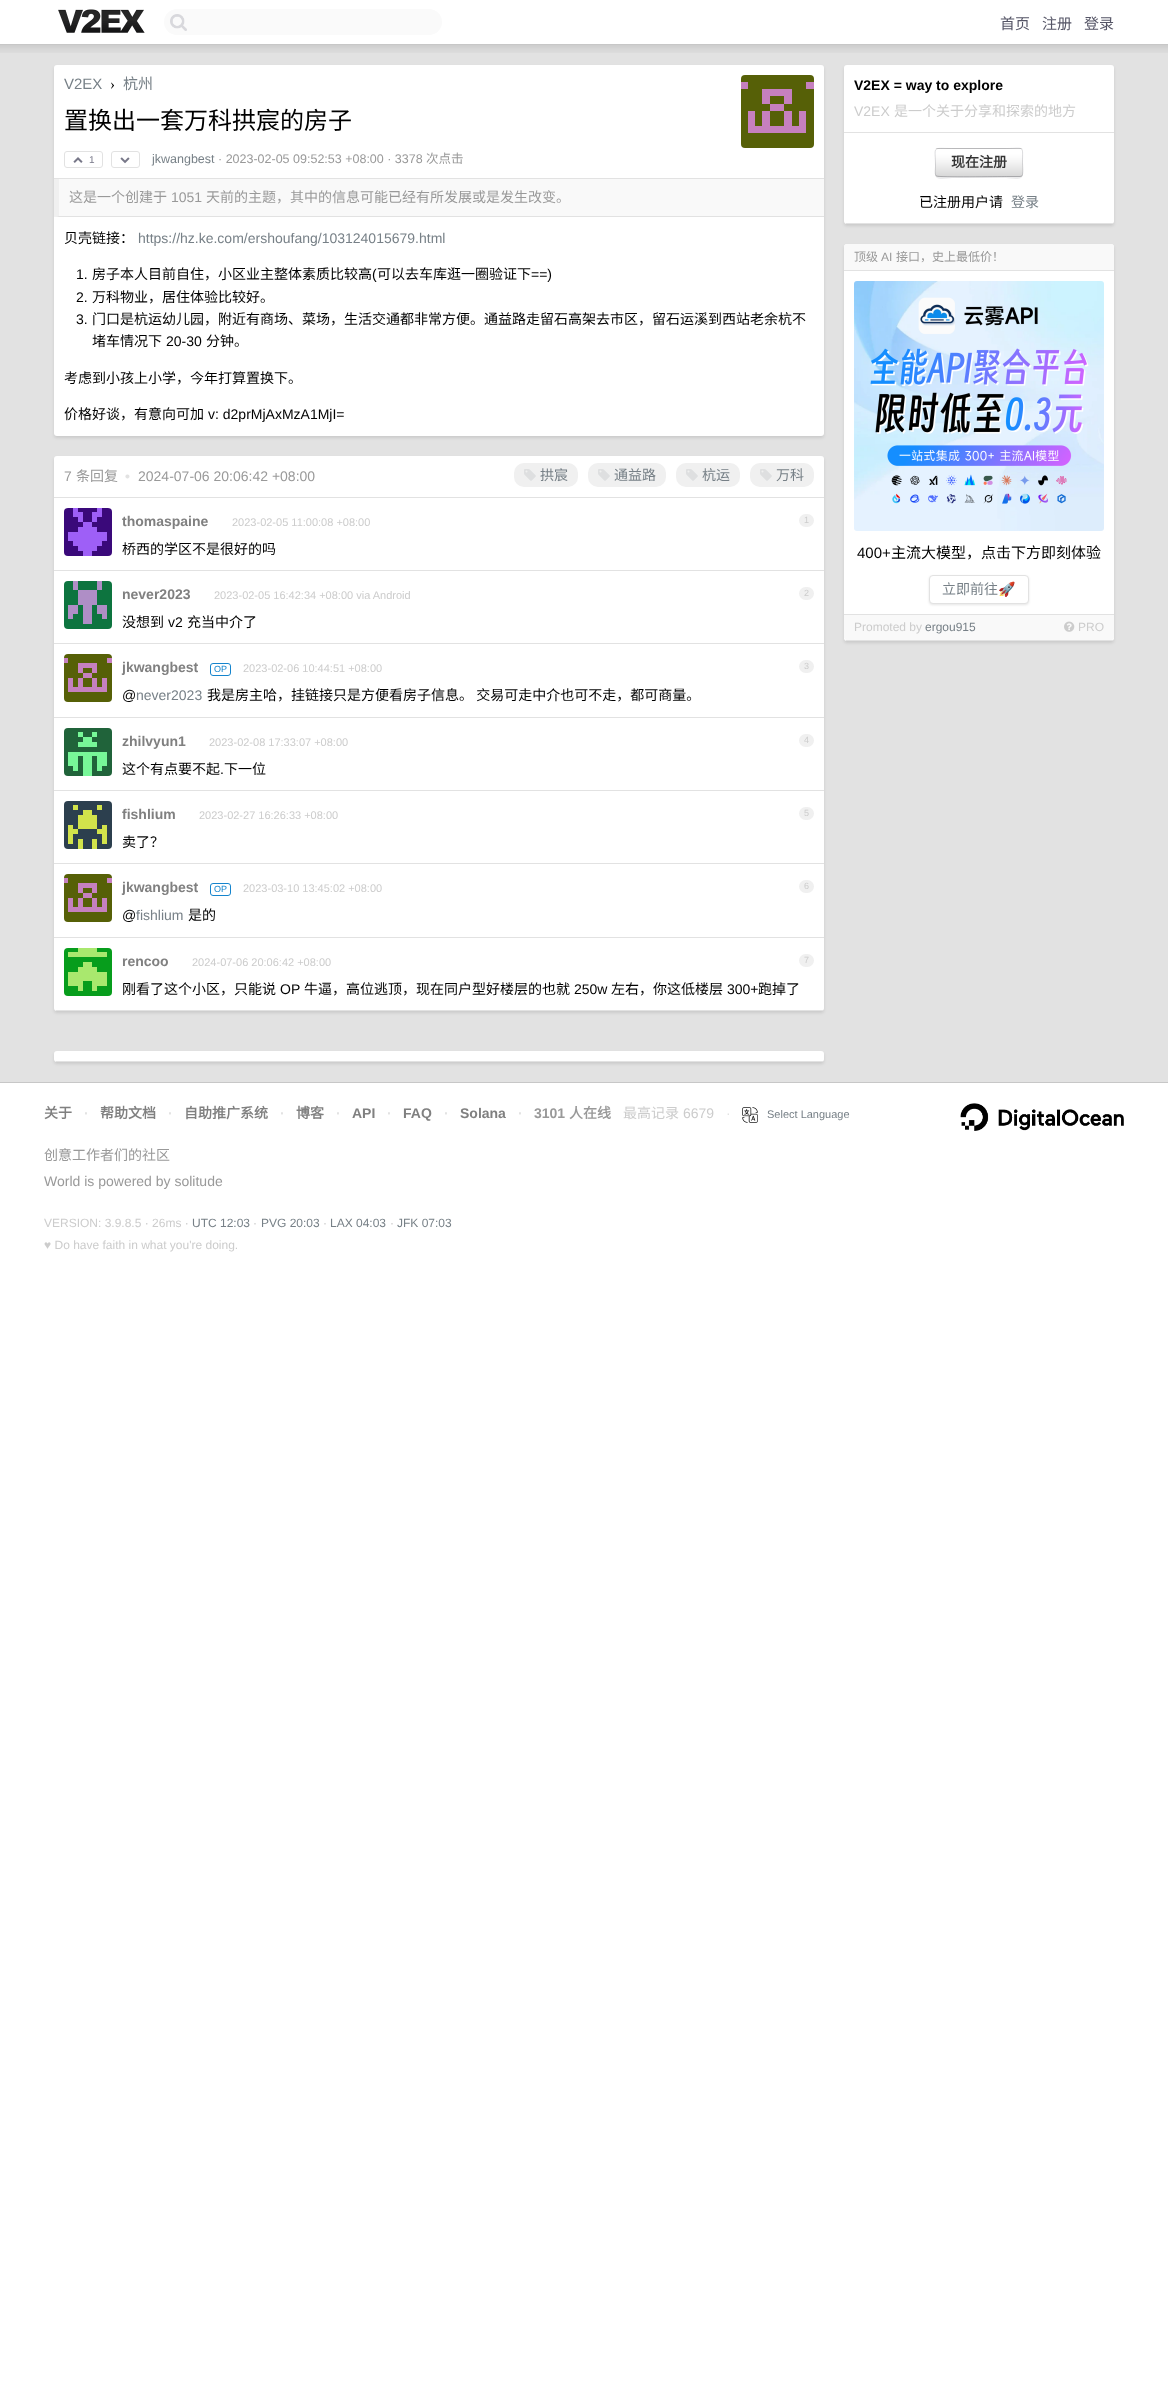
<svg xmlns="http://www.w3.org/2000/svg" xmlns:xlink="http://www.w3.org/1999/xlink" width="1168" height="2395" viewBox="0 0 1168 2395">
<style>
.cls-1{font:15px Noto Sans CJK SC;fill:#555566}
.cls-2{font:15px Liberation Sans;fill:#778087}
.cls-3{font:15px Liberation Serif;fill:#000000}
.cls-4{font:15px Noto Sans CJK SC;fill:#778087}
.cls-5{font:24px Noto Sans CJK SC;fill:#000000}
.cls-6{font:10px Liberation Sans;fill:#777788}
.cls-7{font:12.5px Liberation Sans;fill:#778087}
.cls-8{font:12.5px Liberation Sans;fill:#999999}
.cls-9{font:12.5px Noto Sans CJK SC;fill:#999999}
.cls-10{font:14px Noto Sans CJK SC;fill:#999999}
.cls-11{font:14px Liberation Sans;fill:#999999}
.cls-12{font:14px Noto Sans CJK SC;fill:#000000}
.cls-13{font:14px Liberation Sans;fill:#778087}
.cls-14{font:14px Liberation Sans;fill:#000000}
.cls-15{font:bold 14px Liberation Sans;fill:#e2e2e2}
.cls-16{font:14px Noto Sans CJK SC;fill:#778087}
.cls-17{font:bold 14px Liberation Sans;fill:#808080}
.cls-18{font:11px Liberation Sans;fill:#cccccc}
.cls-19{font:9px Liberation Sans;fill:#cccccc}
.cls-20{font:9px Liberation Sans;fill:#1484cd}
.cls-21{font:bold 14px Liberation Sans;fill:#000000}
.cls-22{font:14px Liberation Sans;fill:#cccccc}
.cls-23{font:14px Noto Sans CJK SC;fill:#cccccc}
.cls-24{font:bold 14px Noto Sans CJK SC;fill:#333333}
.cls-25{font:12px Noto Sans CJK SC;fill:#999999}
.cls-26{font:12px Liberation Sans;fill:#999999}
.cls-27{font:15px Liberation Sans;fill:#000000}
.cls-28{font:15px Noto Sans CJK SC;fill:#000000}
.cls-29{font:14px Noto Color Emoji;fill:#778087}
.cls-30{font:12px Liberation Sans;fill:#cccccc}
.cls-31{font:12px Liberation Sans;fill:#778087}
.cls-32{font:bold 14px Noto Sans CJK SC;fill:#808080}
.cls-33{font:bold 14px Liberation Sans;fill:#999999}
.cls-34{font:bold 14px Noto Sans CJK SC;fill:#999999}
.cls-35{font:14px Liberation Sans;fill:#e2e2e2}
.cls-36{font:11px Liberation Sans;fill:#778087}
</style>
<rect width="100%" height="100%" fill="#ffffff"/>
<rect fill="#c7c7c7" x="0" y="44" width="1168" height="1"/>
<image xlink:href="image0.png" x="58" y="9" width="87" height="24"/>
<rect fill="#fafafa" x="164" y="9" width="278" height="26" rx="13"/>
<image xlink:href="image1.png" x="170" y="14" width="17" height="17"/>
<rect fill="#e2e2e2" x="0" y="45" width="1168" height="1037"/>
<image xlink:href="image2.png" x="0" y="45" width="1168" height="8"/>
<rect fill="#000000" fill-opacity="0.1" filter="blur(1.5px)" x="54" y="67" width="770" height="371" rx="3"/>
<rect fill="#ffffff" x="54" y="65" width="770" height="371" rx="3"/>
<rect fill="#e2e2e2" x="54" y="178" width="770" height="1"/>
<image xlink:href="image3.png" x="741" y="75" width="73" height="73"/>
<rect fill="none" stroke="#e2e2e2" x="64.5" y="151.5" width="38" height="16" rx="2.5"/>
<image xlink:href="image4.png" x="73" y="157" width="10" height="6"/>
<rect fill="none" stroke="#e2e2e2" x="111.5" y="151.5" width="28" height="16" rx="2.5"/>
<image xlink:href="image5.png" x="120" y="157" width="10" height="7"/>
<rect fill="#f9f9f9" x="54" y="179" width="770" height="38"/>
<path fill="#e2e2e2" d="M824 217H54L59 216H824Z"/>
<path fill="#f0f0f0" d="M54 217V179H59V216Z"/>
<rect fill="#000000" fill-opacity="0.1" filter="blur(1.5px)" x="54" y="458" width="770" height="555" rx="3"/>
<rect fill="#ffffff" x="54" y="456" width="770" height="555" rx="3"/>
<rect fill="#e2e2e2" x="56" y="1010" width="767" height="1"/>
<rect fill="#e2e2e2" x="54" y="497" width="770" height="1"/>
<rect fill="#f0f0f0" x="514" y="463" width="64" height="24" rx="10"/>
<image xlink:href="image6.png" x="524" y="469" width="12" height="12"/>
<rect fill="#f0f0f0" x="588" y="463" width="78" height="24" rx="10"/>
<image xlink:href="image6.png" x="598" y="469" width="12" height="12"/>
<rect fill="#f0f0f0" x="676" y="463" width="64" height="24" rx="10"/>
<image xlink:href="image6.png" x="686" y="469" width="12" height="12"/>
<rect fill="#f0f0f0" x="750" y="463" width="64" height="24" rx="10"/>
<image xlink:href="image6.png" x="760" y="469" width="12" height="12"/>
<rect fill="#e2e2e2" x="54" y="570" width="770" height="1"/>
<image xlink:href="image7.png" x="64" y="508" width="48" height="48"/>
<rect fill="#f0f0f0" x="799" y="514" width="15" height="13" rx="6.5"/>
<rect fill="#e2e2e2" x="54" y="643" width="770" height="1"/>
<image xlink:href="image8.png" x="64" y="581" width="48" height="48"/>
<rect fill="#f0f0f0" x="799" y="587" width="15" height="13" rx="6.5"/>
<rect fill="#e2e2e2" x="54" y="717" width="770" height="1"/>
<image xlink:href="image9.png" x="64" y="654" width="48" height="48"/>
<rect fill="none" stroke="#1484cd" x="210.5" y="663.5" width="20" height="12" rx="2.5"/>
<rect fill="#f0f0f0" x="799" y="660" width="15" height="13" rx="6.5"/>
<rect fill="#e2e2e2" x="54" y="790" width="770" height="1"/>
<image xlink:href="image10.png" x="64" y="728" width="48" height="48"/>
<rect fill="#f0f0f0" x="799" y="734" width="15" height="13" rx="6.5"/>
<rect fill="#e2e2e2" x="54" y="863" width="770" height="1"/>
<image xlink:href="image11.png" x="64" y="801" width="48" height="48"/>
<rect fill="#f0f0f0" x="799" y="807" width="15" height="13" rx="6.5"/>
<rect fill="#e2e2e2" x="54" y="937" width="770" height="1"/>
<image xlink:href="image9.png" x="64" y="874" width="48" height="48"/>
<rect fill="none" stroke="#1484cd" x="210.5" y="883.5" width="20" height="12" rx="2.5"/>
<rect fill="#f0f0f0" x="799" y="880" width="15" height="13" rx="6.5"/>
<image xlink:href="image12.png" x="64" y="948" width="48" height="48"/>
<rect fill="#f0f0f0" x="799" y="954" width="15" height="13" rx="6.5"/>
<rect fill="#000000" fill-opacity="0.1" filter="blur(1.5px)" x="54" y="1053" width="770" height="11" rx="3"/>
<rect fill="#ffffff" x="54" y="1051" width="770" height="11" rx="3"/>
<rect fill="#e2e2e2" x="56" y="1061" width="767" height="1"/>
<rect fill="#000000" fill-opacity="0.1" filter="blur(1.5px)" x="844" y="67" width="270" height="159" rx="3"/>
<rect fill="#ffffff" x="844" y="65" width="270" height="159" rx="3"/>
<rect fill="#e2e2e2" x="846" y="223" width="267" height="1"/>
<rect fill="#e2e2e2" x="844" y="132" width="270" height="1"/>
<path fill="#ececed" d="M935 174C935 182 948 178 952 178H1006C1010 178 1023 182 1023 174C1023 176 1022 177 1020 177H938C936 177 935 176 935 174Z"/>
<rect fill="#ffffff" x="935" y="148" width="88" height="29" rx="3"/>
<image xlink:href="image13.png" x="935" y="148" width="88" height="29"/>
<path fill="none" stroke="#50505a" stroke-opacity="0.35" d="M1022 176L1020 176.5H1006.5C999 176.5 938.5 177.5 936.5 176H936"/>
<path fill="none" stroke="#50505a" stroke-opacity="0.2" d="M936 176C934.5 174 935.5 168.5 935.5 166.5C935.5 145.5 931 148.5 951.5 148.5H1006.5C1025 148.5 1022.5 145 1022.5 162.5C1022.5 165 1023.5 174 1022 176"/>
<rect fill="#000000" fill-opacity="0.1" filter="blur(1.5px)" x="844" y="246" width="270" height="397" rx="3"/>
<rect fill="#ffffff" x="844" y="244" width="270" height="397" rx="3"/>
<rect fill="#e2e2e2" x="846" y="640" width="267" height="1"/>
<path fill="#f9f9f9" d="M847 244H1111C1112.5 244 1114 245.5 1114 247V271H844V247C844 245.5 845.5 244 847 244Z"/>
<rect fill="#e2e2e2" x="844" y="270" width="270" height="1"/>
<image xlink:href="image14.png" x="854" y="281" width="250" height="250"/>
<rect fill="#e2e2e2" x="844" y="614" width="270" height="1"/>
<rect fill="#000000" fill-opacity="0.1" filter="blur(1px)" x="929" y="576" width="100" height="29" rx="4"/>
<rect fill="#ffffff" stroke="#e2e2e2" x="929.5" y="575.5" width="99" height="28" rx="3.5"/>
<path fill="#f9f9f9" d="M844 615H1114V637C1114 638.5 1112.5 640 1111 640H847C845.5 640 844 638.5 844 637Z"/>
<image xlink:href="image15.png" x="1064" y="621" width="11" height="11"/>
<rect fill="#c7c7c7" x="0" y="1082" width="1168" height="1"/>
<image xlink:href="image16.png" x="742" y="1107" width="16" height="16"/>
<image xlink:href="image17.png" x="960" y="1103" width="164" height="28"/>
<text class="cls-1" x="1000" y="29">首页</text>
<text class="cls-1" x="1042" y="29">注册</text>
<text class="cls-1" x="1084" y="29">登录</text>
<text class="cls-2" x="64" y="89">V2EX</text>
<text class="cls-3" x="110" y="89">›</text>
<text class="cls-4" x="123" y="89">杭州</text>
<text class="cls-5" x="64" y="129">置换出一套万科拱宸的房子</text>
<text class="cls-6" x="89" y="163">1</text>
<text class="cls-7" x="152" y="163">jkwangbest</text>
<text class="cls-8" x="218" y="163">· 2023-02-05 09:52:53 +08:00 · 3378</text>
<text class="cls-9" x="426" y="163">次点击</text>
<text class="cls-10" x="69" y="202">这是一个创建于</text>
<text class="cls-11" x="171" y="202">1051</text>
<text class="cls-10" x="206" y="202">天前的主题，其中的信息可能已经有所发展或是发生改变。</text>
<text class="cls-12" x="64" y="243">贝壳链接：</text>
<text class="cls-13" x="138" y="243">https://hz.ke.com/ershoufang/103124015679.html</text>
<text class="cls-14" x="76" y="279">1.</text>
<text class="cls-12" x="92" y="279">房子本人目前自住，小区业主整体素质比较高</text>
<text class="cls-14" x="372" y="279">(</text>
<text class="cls-12" x="377" y="279">可以去车库逛一圈验证下</text>
<text class="cls-14" x="531" y="279">==)</text>
<text class="cls-14" x="76" y="302">2.</text>
<text class="cls-12" x="92" y="302">万科物业，居住体验比较好。</text>
<text class="cls-14" x="76" y="324">3.</text>
<text class="cls-12"><tspan x="92" y="324">门口是杭运幼儿园，附近有商场、菜场，生活交通都非常方便。通益路走留石高架去市区，留石运溪到西站老余杭不</tspan><tspan x="92" y="346">堵车情况下</tspan></text>
<text class="cls-14" x="166" y="346">20-30</text>
<text class="cls-12" x="206" y="346">分钟。</text>
<text class="cls-12" x="64" y="383">考虑到小孩上小学，今年打算置换下。</text>
<text class="cls-12" x="64" y="419">价格好谈，有意向可加</text>
<text class="cls-14" x="208" y="419">v: d2prMjAxMzA1MjI=</text>
<text class="cls-11" x="64" y="481">7</text>
<text class="cls-10" x="76" y="481">条回复</text>
<text class="cls-15" x="125" y="481">•</text>
<text class="cls-11" x="138" y="481">2024-07-06 20:06:42 +08:00</text>
<text class="cls-16" x="540" y="480">拱宸</text>
<text class="cls-16" x="614" y="480">通益路</text>
<text class="cls-16" x="702" y="480">杭运</text>
<text class="cls-16" x="776" y="480">万科</text>
<text class="cls-17" x="122" y="526">thomaspaine</text>
<text class="cls-18" x="232" y="526">2023-02-05 11:00:08 +08:00</text>
<text class="cls-19" x="804" y="523">1</text>
<text class="cls-12" x="122" y="554">桥西的学区不是很好的吗</text>
<text class="cls-17" x="122" y="599">never2023</text>
<text class="cls-18" x="214" y="599">2023-02-05 16:42:34 +08:00 via Android</text>
<text class="cls-19" x="804" y="596">2</text>
<text class="cls-12" x="122" y="627">没想到</text>
<text class="cls-14" x="168" y="627">v2</text>
<text class="cls-12" x="187" y="627">充当中介了</text>
<text class="cls-17" x="122" y="672">jkwangbest</text>
<text class="cls-20" x="214" y="672">OP</text>
<text class="cls-18" x="243" y="672">2023-02-06 10:44:51 +08:00</text>
<text class="cls-19" x="804" y="669">3</text>
<text class="cls-14" x="122" y="700">@</text>
<text class="cls-13" x="136" y="700">never2023</text>
<text class="cls-12" x="207" y="700">我是房主哈，挂链接只是方便看房子信息。 交易可走中介也可不走，都可商量。</text>
<text class="cls-17" x="122" y="746">zhilvyun1</text>
<text class="cls-18" x="209" y="746">2023-02-08 17:33:07 +08:00</text>
<text class="cls-19" x="804" y="743">4</text>
<text class="cls-12" x="122" y="774">这个有点要不起</text>
<text class="cls-14" x="220" y="774">.</text>
<text class="cls-12" x="224" y="774">下一位</text>
<text class="cls-17" x="122" y="819">fishlium</text>
<text class="cls-18" x="199" y="819">2023-02-27 16:26:33 +08:00</text>
<text class="cls-19" x="804" y="816">5</text>
<text class="cls-12" x="122" y="847">卖了？</text>
<text class="cls-17" x="122" y="892">jkwangbest</text>
<text class="cls-20" x="214" y="892">OP</text>
<text class="cls-18" x="243" y="892">2023-03-10 13:45:02 +08:00</text>
<text class="cls-19" x="804" y="889">6</text>
<text class="cls-14" x="122" y="920">@</text>
<text class="cls-13" x="136" y="920">fishlium</text>
<text class="cls-12" x="188" y="920">是的</text>
<text class="cls-17" x="122" y="966">rencoo</text>
<text class="cls-18" x="192" y="966">2024-07-06 20:06:42 +08:00</text>
<text class="cls-19" x="804" y="963">7</text>
<text class="cls-12" x="122" y="994">刚看了这个小区，只能说</text>
<text class="cls-14" x="280" y="994">OP</text>
<text class="cls-12" x="304" y="994">牛逼，高位逃顶，现在同户型好楼层的也就</text>
<text class="cls-14" x="574" y="994">250w</text>
<text class="cls-12" x="611" y="994">左右，你这低楼层</text>
<text class="cls-14" x="727" y="994">300+</text>
<text class="cls-12" x="758" y="994">跑掉了</text>
<text class="cls-21" x="854" y="90">V2EX = way to explore</text>
<text class="cls-22" x="854" y="116">V2EX</text>
<text class="cls-23" x="894" y="116">是一个关于分享和探索的地方</text>
<text class="cls-24" x="951" y="167">现在注册</text>
<text class="cls-12" x="919" y="207">已注册用户请</text>
<text class="cls-16" x="1011" y="207">登录</text>
<text class="cls-25" x="854" y="261">顶级</text>
<text class="cls-26" x="881" y="261">AI</text>
<text class="cls-25" x="896" y="261">接口，史上最低价！</text>
<text class="cls-27" x="857" y="558">400+</text>
<text class="cls-28" x="891" y="558">主流大模型，点击下方即刻体验</text>
<text class="cls-16" x="942" y="594">立即前往</text>
<text class="cls-29" x="998" y="594">🚀</text>
<text class="cls-30" x="854" y="631">Promoted by</text>
<text class="cls-31" x="925" y="631">ergou915</text>
<text class="cls-30" x="1078" y="631">PRO</text>
<text class="cls-32" x="44" y="1118">关于</text>
<text class="cls-15" x="84" y="1118">·</text>
<text class="cls-32" x="100" y="1118">帮助文档</text>
<text class="cls-15" x="168" y="1118">·</text>
<text class="cls-32" x="184" y="1118">自助推广系统</text>
<text class="cls-15" x="280" y="1118">·</text>
<text class="cls-32" x="296" y="1118">博客</text>
<text class="cls-15" x="336" y="1118">·</text>
<text class="cls-17" x="352" y="1118">API</text>
<text class="cls-15" x="387" y="1118">·</text>
<text class="cls-17" x="403" y="1118">FAQ</text>
<text class="cls-15" x="444" y="1118">·</text>
<text class="cls-17" x="460" y="1118">Solana</text>
<text class="cls-15" x="518" y="1118">·</text>
<text class="cls-33" x="534" y="1118">3101</text>
<text class="cls-34" x="569" y="1118">人在线</text>
<text class="cls-23" x="623" y="1118">最高记录</text>
<text class="cls-22" x="683" y="1118">6679</text>
<text class="cls-35" x="726" y="1118">·</text>
<text class="cls-36" x="767" y="1118">Select Language</text>
<text class="cls-10" x="44" y="1160">创意工作者们的社区</text>
<text class="cls-11" x="44" y="1186">World is powered by solitude</text>
<text class="cls-30" x="44" y="1227">VERSION: 3.9.8.5 · 26ms ·</text>
<text class="cls-31" x="192" y="1227">UTC 12:03</text>
<text class="cls-30" x="253" y="1227">·</text>
<text class="cls-31" x="261" y="1227">PVG 20:03</text>
<text class="cls-30" x="323" y="1227">·</text>
<text class="cls-31" x="330" y="1227">LAX 04:03</text>
<text class="cls-30" x="390" y="1227">·</text>
<text class="cls-31" x="397" y="1227">JFK 07:03</text>
<text class="cls-30" x="44" y="1249">♥ Do have faith in what you're doing.</text>
</svg>
